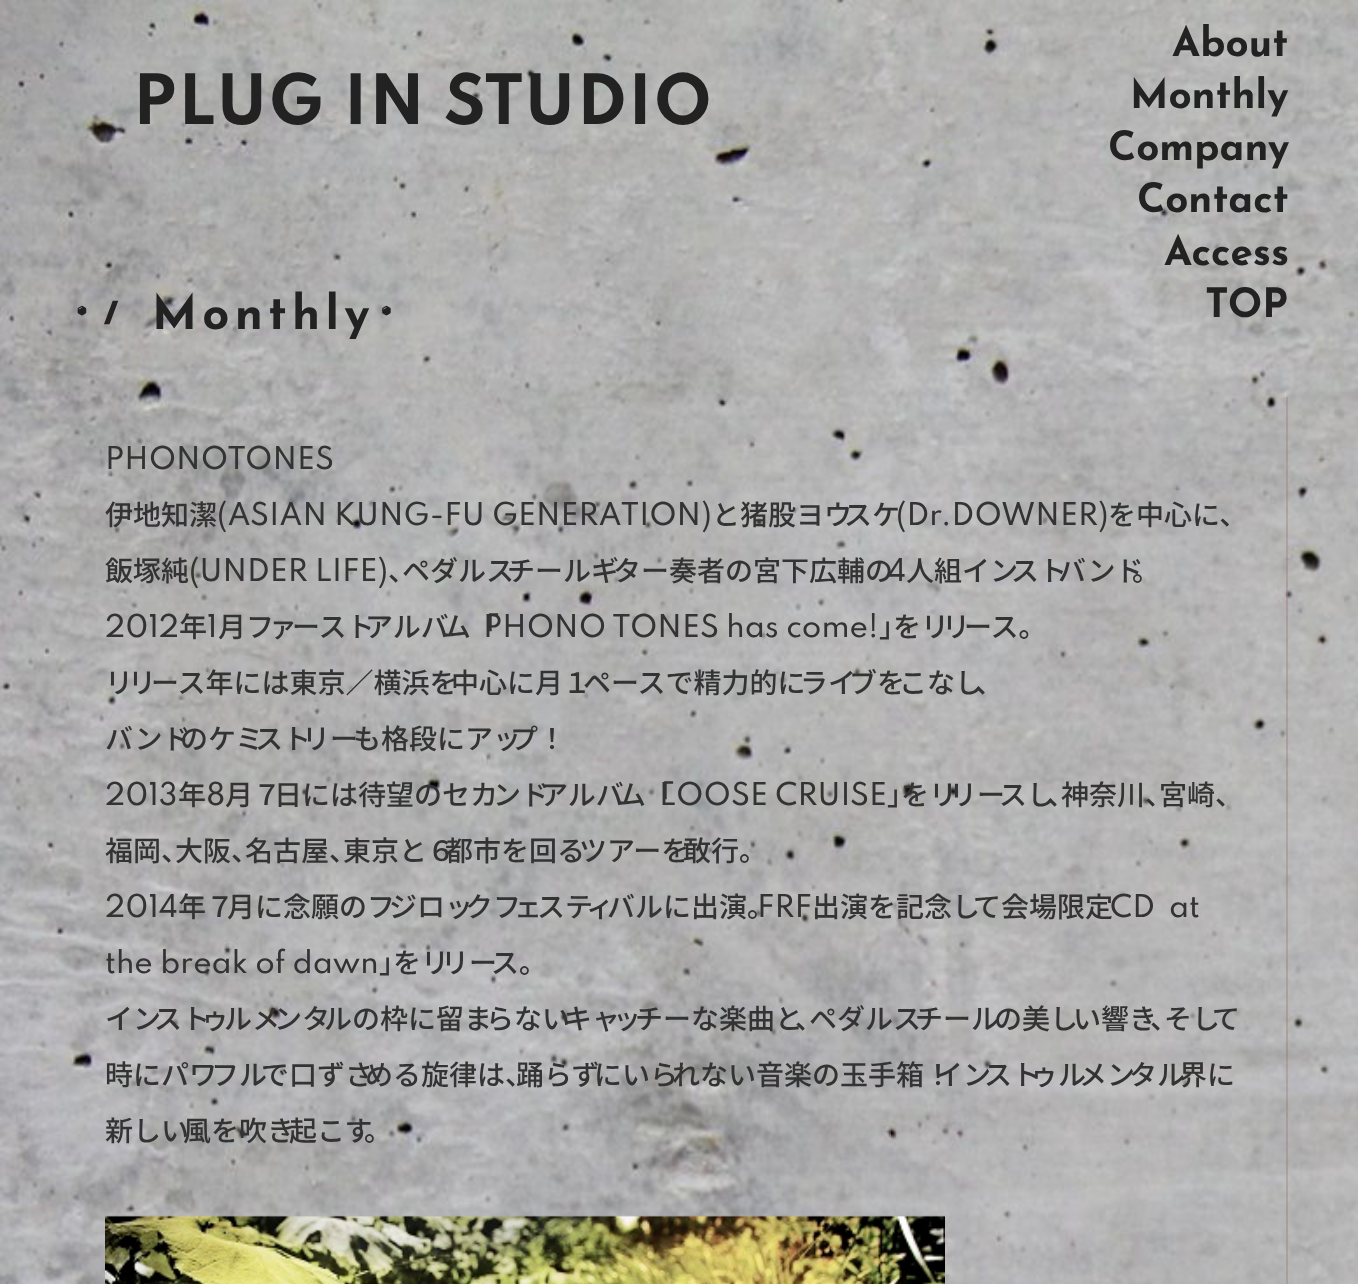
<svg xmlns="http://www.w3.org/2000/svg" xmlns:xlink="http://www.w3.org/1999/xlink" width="1358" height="1284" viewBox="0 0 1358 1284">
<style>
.cls-1{font:bold 61.5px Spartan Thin;letter-spacing:1.75px;fill:#222222}
.cls-2{font:bold 40.5px Josefin Sans;fill:#222222}
.cls-3{font:bold 47.5px 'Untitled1';letter-spacing:5.25px;fill:#222222}
.cls-4{font:bold 47.5px Josefin Sans;letter-spacing:5.25px;fill:#222222}
.cls-5{font:500 28px Spartan Thin;fill:#333333}
.cls-6{font:500 28px Noto Sans JP;fill:#333333}
</style>
<rect width="100%" height="100%" fill="#ffffff"/>
<image xlink:href="image0.png" x="0" y="0" width="1358" height="1284"/>
<image xlink:href="image1.png" x="77" y="305" width="10" height="11"/>
<image xlink:href="image2.png" x="382" y="305" width="9" height="11"/>
<path fill="#996666" fill-opacity="0.3" d="M1288 397V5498L1286 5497V397Z"/>
<image xlink:href="image3.png" x="105" y="1215" width="840" height="69"/>
<text class="cls-1" x="133" y="124">PLUG IN</text>
<text class="cls-1" x="444" y="124">STUDIO</text>
<text class="cls-2" x="1172" y="56">About</text>
<text class="cls-2" x="1130" y="108">Monthly</text>
<text class="cls-2" x="1108" y="160">Company</text>
<text class="cls-2" x="1137" y="212">Contact</text>
<text class="cls-2" x="1164" y="265">Access</text>
<text class="cls-2" x="1205" y="317">TOP</text>
<text class="cls-3" x="96" y="329">/</text>
<text class="cls-4" x="152" y="329">Monthly</text>
<text class="cls-5" x="105" y="469">PHONOTONES</text>
<text class="cls-6" x="105" y="525">伊地知潔</text>
<text class="cls-5" x="217" y="525">(ASIAN KUNG-FU GENERATION)</text>
<text class="cls-6" x="712" y="525">と猪股ヨウ</text>
<text class="cls-6" x="844" y="525">スケ</text>
<text class="cls-5" x="896" y="525">(Dr.DOWNER)</text>
<text class="cls-6" x="1108" y="525">を中心に、</text>
<text class="cls-6" x="105" y="581">飯塚純</text>
<text class="cls-5" x="189" y="581">(UNDER LIFE)</text>
<text class="cls-6" x="388" y="581">、</text>
<text class="cls-6" x="402" y="581">ペダルス</text>
<text class="cls-6" x="507" y="581">チールギ</text>
<text class="cls-6" x="613" y="581">ター奏者の宮下広輔の</text>
<text class="cls-5" x="887" y="581">4</text>
<text class="cls-6" x="906" y="581">人組イン</text>
<text class="cls-6" x="1011" y="581">スト</text>
<text class="cls-6" x="1058" y="581">バンド</text>
<text class="cls-6" x="1132" y="581">。</text>
<text class="cls-5" x="105" y="637">2012</text>
<text class="cls-6" x="179" y="637">年</text>
<text class="cls-5" x="207" y="637">1</text>
<text class="cls-6" x="218" y="637">月フ</text>
<text class="cls-6" x="269" y="637">ァ</text>
<text class="cls-6" x="292" y="637">ースト</text>
<text class="cls-6" x="365" y="637">アルバ</text>
<text class="cls-6" x="443" y="637">ム「</text>
<text class="cls-5" x="483" y="637">PHONO TONES has come!</text>
<text class="cls-6" x="879" y="637">」</text>
<text class="cls-6" x="893" y="637">をリ</text>
<text class="cls-6" x="942" y="637">リ</text>
<text class="cls-6" x="964" y="637">ース。</text>
<text class="cls-6" x="105" y="693">リ</text>
<text class="cls-6" x="128" y="693">リ</text>
<text class="cls-6" x="151" y="693">ース年には東京／横浜を</text>
<text class="cls-6" x="451" y="693">中心に月１</text>
<text class="cls-6" x="583" y="693">ペースで精力的に</text>
<text class="cls-6" x="800" y="693">ライ</text>
<text class="cls-6" x="849" y="693">ブを</text>
<text class="cls-6" x="899" y="693">こなし</text>
<text class="cls-6" x="975" y="693">、</text>
<text class="cls-6" x="105" y="749">バンド</text>
<text class="cls-6" x="180" y="749">のケミ</text>
<text class="cls-6" x="255" y="749">スト</text>
<text class="cls-6" x="302" y="749">リー</text>
<text class="cls-6" x="353" y="749">も格段にアッ</text>
<text class="cls-6" x="510" y="749">プ！</text>
<text class="cls-5" x="105" y="805">2013</text>
<text class="cls-6" x="178" y="805">年</text>
<text class="cls-5" x="206" y="805">8</text>
<text class="cls-6" x="225" y="805">月７</text>
<text class="cls-6" x="274" y="805">日には待望のセカ</text>
<text class="cls-6" x="493" y="805">ンド</text>
<text class="cls-6" x="540" y="805">アルバ</text>
<text class="cls-6" x="618" y="805">ム「</text>
<text class="cls-5" x="659" y="805">LOOSE CRUISE</text>
<text class="cls-6" x="887" y="805">」</text>
<text class="cls-6" x="901" y="805">をリ</text>
<text class="cls-6" x="949" y="805">リー</text>
<text class="cls-6" x="999" y="805">スし</text>
<text class="cls-6" x="1047" y="805">、</text>
<text class="cls-6" x="1061" y="805">神奈川、</text>
<text class="cls-6" x="1159" y="805">宮崎、</text>
<text class="cls-6" x="105" y="861">福岡、</text>
<text class="cls-6" x="175" y="861">大阪、</text>
<text class="cls-6" x="245" y="861">名古屋、</text>
<text class="cls-6" x="343" y="861">東京と６</text>
<text class="cls-6" x="445" y="861">都市を回る</text>
<text class="cls-6" x="579" y="861">ツアーを</text>
<text class="cls-6" x="683" y="861">敢行。</text>
<text class="cls-5" x="105" y="917">2014</text>
<text class="cls-6" x="178" y="917">年７</text>
<text class="cls-6" x="227" y="917">月に念願のフ</text>
<text class="cls-6" x="389" y="917">ジロッ</text>
<text class="cls-6" x="465" y="917">クフ</text>
<text class="cls-6" x="514" y="917">ェ</text>
<text class="cls-6" x="537" y="917">ステ</text>
<text class="cls-6" x="586" y="917">ィ</text>
<text class="cls-6" x="607" y="917">バルに出演。</text>
<text class="cls-5" x="757" y="917">FRF</text>
<text class="cls-6" x="812" y="917">出演を記念し</text>
<text class="cls-6" x="973" y="917">て会場限定</text>
<text class="cls-5" x="1110" y="917">CD</text>
<text class="cls-5" x="1169" y="917">at</text>
<text class="cls-5" x="105" y="973">the break of dawn</text>
<text class="cls-6" x="379" y="973">」</text>
<text class="cls-6" x="393" y="973">をリ</text>
<text class="cls-6" x="441" y="973">リー</text>
<text class="cls-6" x="491" y="973">ス。</text>
<text class="cls-6" x="105" y="1029">イン</text>
<text class="cls-6" x="154" y="1029">スト</text>
<text class="cls-6" x="201" y="1029">ゥ</text>
<text class="cls-6" x="224" y="1029">ルメ</text>
<text class="cls-6" x="274" y="1029">ンタ</text>
<text class="cls-6" x="324" y="1029">ルの枠に留ま</text>
<text class="cls-6" x="486" y="1029">らない</text>
<text class="cls-6" x="564" y="1029">キャ</text>
<text class="cls-6" x="613" y="1029">ッ</text>
<text class="cls-6" x="635" y="1029">チーな楽曲と</text>
<text class="cls-6" x="795" y="1029">、</text>
<text class="cls-6" x="809" y="1029">ペダルス</text>
<text class="cls-6" x="915" y="1029">チール</text>
<text class="cls-6" x="994" y="1029">の美し</text>
<text class="cls-6" x="1073" y="1029">い響き</text>
<text class="cls-6" x="1150" y="1029">、</text>
<text class="cls-6" x="1164" y="1029">そし</text>
<text class="cls-6" x="1212" y="1029">て</text>
<text class="cls-6" x="105" y="1085">時にパワ</text>
<text class="cls-6" x="211" y="1085">フル</text>
<text class="cls-6" x="261" y="1085">で口ずさ</text>
<text class="cls-6" x="365" y="1085">める旋律は、</text>
<text class="cls-6" x="516" y="1085">踊らず</text>
<text class="cls-6" x="594" y="1085">にいら</text>
<text class="cls-6" x="672" y="1085">れない音楽の玉手箱！</text>
<text class="cls-6" x="935" y="1085">イン</text>
<text class="cls-6" x="984" y="1085">スト</text>
<text class="cls-6" x="1030" y="1085">ゥル</text>
<text class="cls-6" x="1079" y="1085">メン</text>
<text class="cls-6" x="1129" y="1085">タル</text>
<text class="cls-6" x="1179" y="1085">界に</text>
<text class="cls-6" x="105" y="1141">新しい</text>
<text class="cls-6" x="183" y="1141">風を吹き</text>
<text class="cls-6" x="289" y="1141">起こす</text>
<text class="cls-6" x="364" y="1141">。</text>
</svg>
